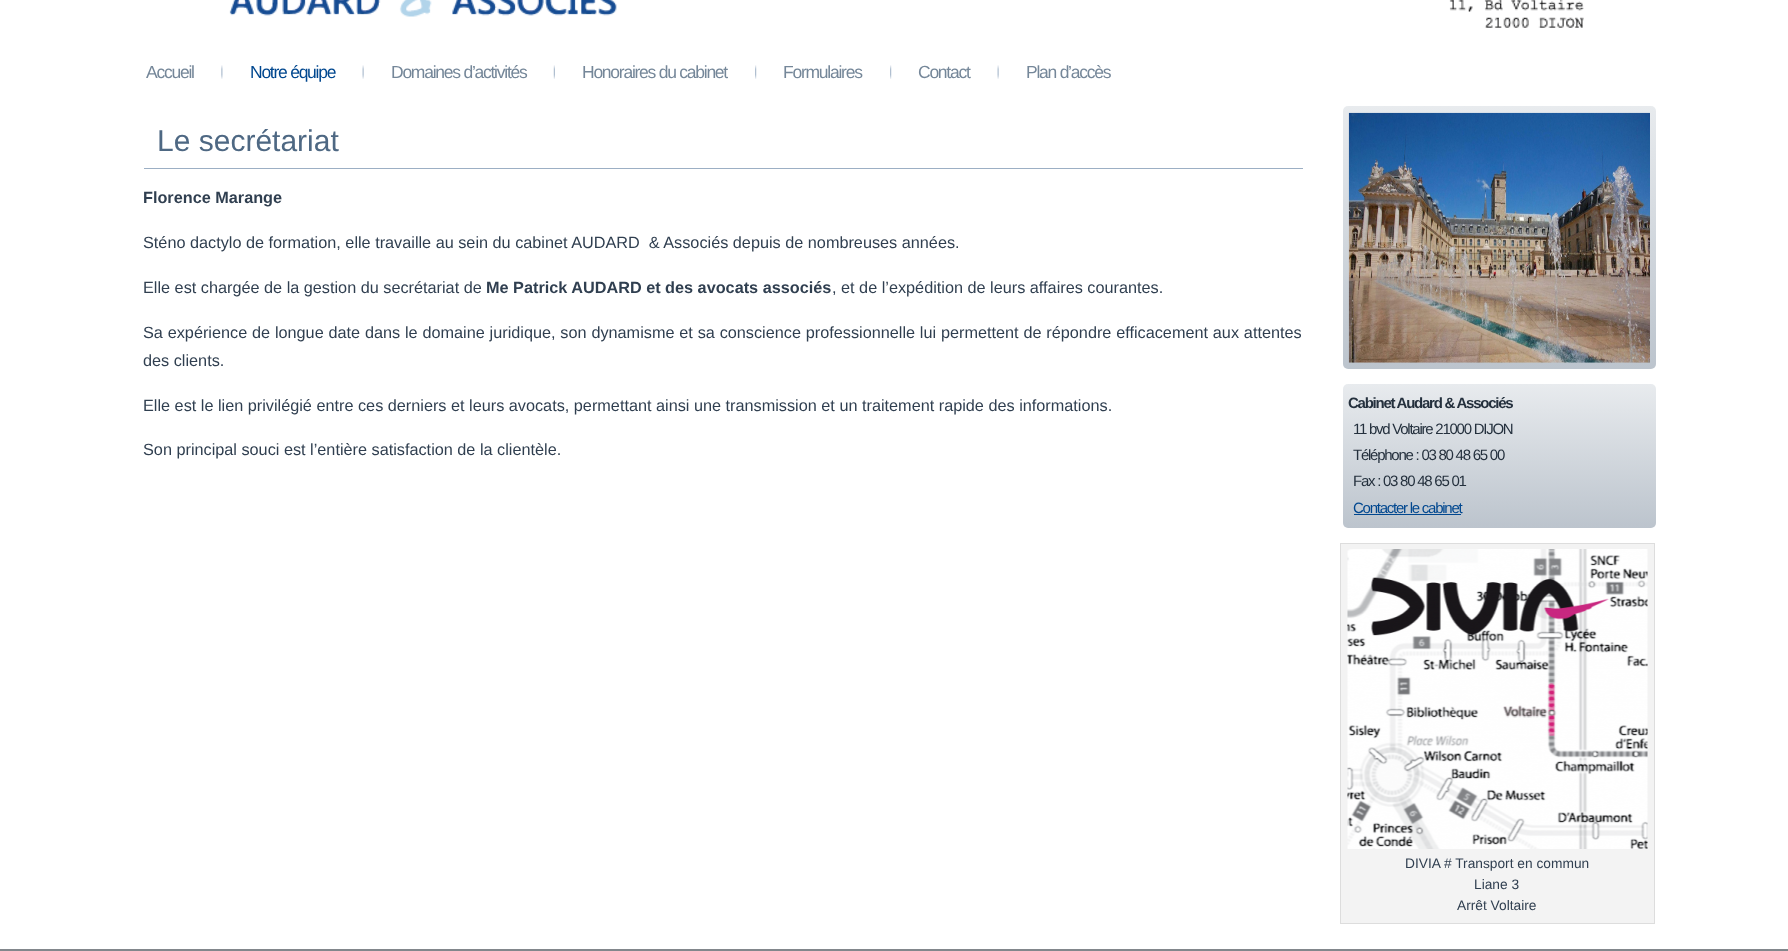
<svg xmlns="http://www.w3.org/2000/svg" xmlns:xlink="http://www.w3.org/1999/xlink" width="1788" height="951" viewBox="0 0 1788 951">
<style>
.cls-1{font:17.5px Liberation Sans;letter-spacing:-1.25px;fill:#758799}
.cls-2{font:17.5px Liberation Sans;letter-spacing:-1.25px;fill:#00478f}
.cls-3{font:30px Liberation Sans;fill:#4e6883}
.cls-4{font:bold 16.25px Liberation Sans;fill:#303f50}
.cls-5{font:16.25px Liberation Sans;fill:#303f50}
.cls-6{font:bold 15px Liberation Sans;letter-spacing:-1.25px;fill:#24303d}
.cls-7{font:15px Liberation Sans;letter-spacing:-1.25px;fill:#24303d}
.cls-8{font:15px Liberation Sans;letter-spacing:-1.25px;fill:#00478f}
.cls-9{font:13.75px Liberation Sans;fill:#303f50}
</style>
<defs>
<linearGradient id="g1" gradientUnits="userSpaceOnUse" x1="1499" y1="106" x2="1499" y2="369"><stop offset="0" stop-color="#e8ebee"/><stop offset="1" stop-color="#bcc4cd"/></linearGradient>
<linearGradient id="g2" gradientUnits="userSpaceOnUse" x1="1499" y1="384" x2="1499" y2="528"><stop offset="0" stop-color="#e8ebee"/><stop offset="1" stop-color="#bcc4cd"/></linearGradient>
</defs>
<rect width="100%" height="100%" fill="#ffffff"/>
<image xlink:href="image0.png" x="229" y="0" width="1355" height="28"/>
<image xlink:href="image1.png" x="221" y="65" width="2" height="14"/>
<image xlink:href="image2.png" x="362" y="65" width="2" height="14"/>
<image xlink:href="image3.png" x="553" y="65" width="2" height="14"/>
<image xlink:href="image4.png" x="755" y="65" width="2" height="14"/>
<image xlink:href="image4.png" x="890" y="65" width="2" height="14"/>
<image xlink:href="image2.png" x="997" y="65" width="2" height="14"/>
<rect fill="#9cafc4" x="144" y="168" width="1159" height="1"/>
<rect fill="url(#g1)" x="1343" y="106" width="313" height="263" rx="5"/>
<image xlink:href="image5.png" x="1348" y="112" width="302" height="251"/>
<rect fill="url(#g2)" x="1343" y="384" width="313" height="144" rx="5"/>
<rect fill="#00478f" x="1354" y="514" width="107" height="1"/>
<rect fill="#f3f3f3" stroke="#dddddd" x="1340.5" y="543.5" width="314" height="380"/>
<image xlink:href="image6.png" x="1347" y="549" width="301" height="300"/>
<rect fill="#82878c" x="0" y="949" width="1788" height="2"/>
<text class="cls-1" x="146" y="78">Accueil</text>
<text class="cls-2" x="250" y="78">Notre équipe</text>
<text class="cls-1" x="391" y="78">Domaines d’activités</text>
<text class="cls-1" x="582" y="78">Honoraires du cabinet</text>
<text class="cls-1" x="783" y="78">Formulaires</text>
<text class="cls-1" x="918" y="78">Contact</text>
<text class="cls-1" x="1026" y="78">Plan d’accès</text>
<text class="cls-3" x="157" y="151">Le secrétariat</text>
<text class="cls-4" x="143" y="203">Florence Marange</text>
<text class="cls-5" xml:space="preserve" x="143" y="248">Sténo dactylo de formation, elle travaille au sein du cabinet AUDARD  &amp; Associés depuis de nombreuses années.</text>
<text class="cls-5" x="143" y="293">Elle est chargée de la gestion du secrétariat de</text>
<text class="cls-4" x="486" y="293">Me Patrick AUDARD et des avocats associés</text>
<text class="cls-5" x="832" y="293">, et de l’expédition de leurs affaires courantes.</text>
<text class="cls-5"><tspan x="143" y="338" word-spacing="0.3">Sa expérience de longue date dans le domaine juridique, son dynamisme et sa conscience professionnelle lui permettent de répondre efficacement aux attentes</tspan><tspan x="143" y="366">des clients.</tspan></text>
<text class="cls-5" x="143" y="411">Elle est le lien privilégié entre ces derniers et leurs avocats, permettant ainsi une transmission et un traitement rapide des informations.</text>
<text class="cls-5" x="143" y="455">Son principal souci est l’entière satisfaction de la clientèle.</text>
<text class="cls-6" x="1348" y="408">Cabinet Audard &amp; Associés</text>
<text class="cls-7"><tspan x="1353" y="434">11 bvd Voltaire 21000 DIJON</tspan><tspan x="1353" y="460">Téléphone : 03 80 48 65 00</tspan><tspan x="1353" y="486">Fax : 03 80 48 65 01</tspan></text>
<text class="cls-8" x="1353" y="513">Contacter le cabinet</text>
<text class="cls-9" x="1405" y="868">DIVIA # Transport en commun</text>
<text class="cls-9" x="1474" y="889">Liane 3</text>
<text class="cls-9" x="1457" y="910">Arrêt Voltaire</text>
</svg>
